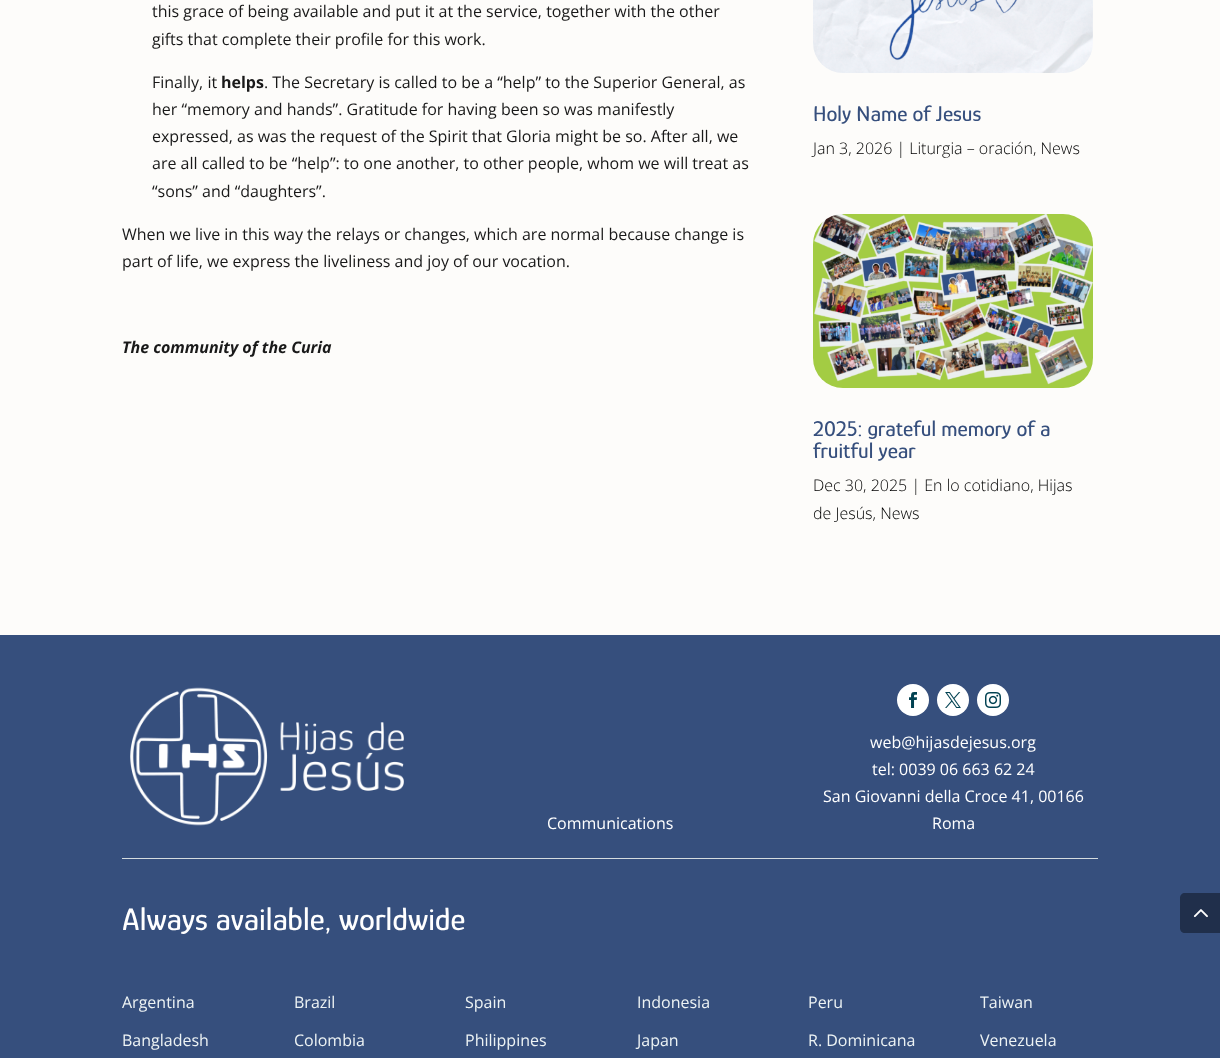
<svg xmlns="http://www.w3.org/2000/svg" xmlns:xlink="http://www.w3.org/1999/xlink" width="1220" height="1058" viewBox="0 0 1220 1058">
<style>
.cls-1{font:16px Open Sans;fill:#191919}
.cls-2{font:bold 16px Open Sans;fill:#191919}
.cls-3{font:italic bold 16px Open Sans;fill:#191919}
.cls-4{font:500 22px Glory;fill:#364f7d}
.cls-5{font:300 16px Open Sans;fill:#000000}
.cls-6{font:16px Open Sans;fill:#ffffff}
.cls-7{font:500 32px Glory;fill:#ffffff}
.cls-8{font:16px Open Sans;fill:#edf3f4}
</style>
<rect width="100%" height="100%" fill="#fdfcfa"/>
<image xlink:href="image0.png" x="813" y="0" width="280" height="73"/>
<image xlink:href="image1.png" x="813" y="214" width="280" height="174"/>
<rect fill="#364f7d" x="0" y="635" width="1220" height="423"/>
<rect fill="#d5dcdf" x="122" y="858" width="976" height="1"/>
<image xlink:href="image2.png" x="130" y="687" width="274" height="139"/>
<circle fill="#ffffff" cx="913" cy="700" r="16"/>
<image xlink:href="image3.png" x="909" y="692" width="8" height="16"/>
<circle fill="#ffffff" cx="953" cy="700" r="16"/>
<image xlink:href="image4.png" x="945" y="692" width="16" height="16"/>
<circle fill="#ffffff" cx="993" cy="700" r="16"/>
<image xlink:href="image5.png" x="985" y="692" width="16" height="16"/>
<path fill="#202f4b" d="M1185 893H1220V933H1185C1182 933 1180 931 1180 928V898C1180 895 1182 893 1185 893Z"/>
<image xlink:href="image6.png" x="1193" y="909" width="15" height="9"/>
<text class="cls-1"><tspan x="152" y="17">this grace of being available and put it at the service, together with the other</tspan><tspan x="152" y="45">gifts that complete their profile for this work.</tspan></text>
<text class="cls-1" x="152" y="88">Finally, it</text>
<text class="cls-2" x="221" y="88">helps</text>
<text class="cls-1" x="264" y="88">. The Secretary is called to be a “help” to the Superior General, as</text>
<text class="cls-1"><tspan x="152" y="115">her “memory and hands”. Gratitude for having been so was manifestly</tspan><tspan x="152" y="142">expressed, as was the request of the Spirit that Gloria might be so. After all, we</tspan><tspan x="152" y="169">are all called to be “help”: to one another, to other people, whom we will treat as</tspan><tspan x="152" y="197">“sons” and “daughters”.</tspan></text>
<text class="cls-1"><tspan x="122" y="240">When we live in this way the relays or changes, which are normal because change is</tspan><tspan x="122" y="267">part of life, we express the liveliness and joy of our vocation.</tspan></text>
<text class="cls-3" x="122" y="353">The community of the Curia</text>
<text class="cls-4" x="813" y="121">Holy Name of Jesus</text>
<text class="cls-5" x="813" y="154">Jan 3, 2026 | Liturgia – oración, News</text>
<text class="cls-4"><tspan x="813" y="436">2025: grateful memory of a</tspan><tspan x="813" y="458">fruitful year</tspan></text>
<text class="cls-5"><tspan x="813" y="491">Dec 30, 2025 | En lo cotidiano, Hijas</tspan><tspan x="813" y="519">de Jesús, News</tspan></text>
<text class="cls-6" x="547" y="829">Communications</text>
<text class="cls-6" x="870" y="748">web@hijasdejesus.org</text>
<text class="cls-6" x="872" y="775">tel: 0039 06 663 62 24</text>
<text class="cls-6" x="823" y="802">San Giovanni della Croce 41, 00166</text>
<text class="cls-6" x="932" y="829">Roma</text>
<text class="cls-7" x="122" y="930">Always available, worldwide</text>
<text class="cls-8" x="122" y="1008">Argentina</text>
<text class="cls-8" x="122" y="1046">Bangladesh</text>
<text class="cls-8" x="294" y="1008">Brazil</text>
<text class="cls-8" x="294" y="1046">Colombia</text>
<text class="cls-8" x="465" y="1008">Spain</text>
<text class="cls-8" x="465" y="1046">Philippines</text>
<text class="cls-8" x="637" y="1008">Indonesia</text>
<text class="cls-8" x="637" y="1046">Japan</text>
<text class="cls-8" x="808" y="1008">Peru</text>
<text class="cls-8" x="808" y="1046">R. Dominicana</text>
<text class="cls-8" x="980" y="1008">Taiwan</text>
<text class="cls-8" x="980" y="1046">Venezuela</text>
</svg>
